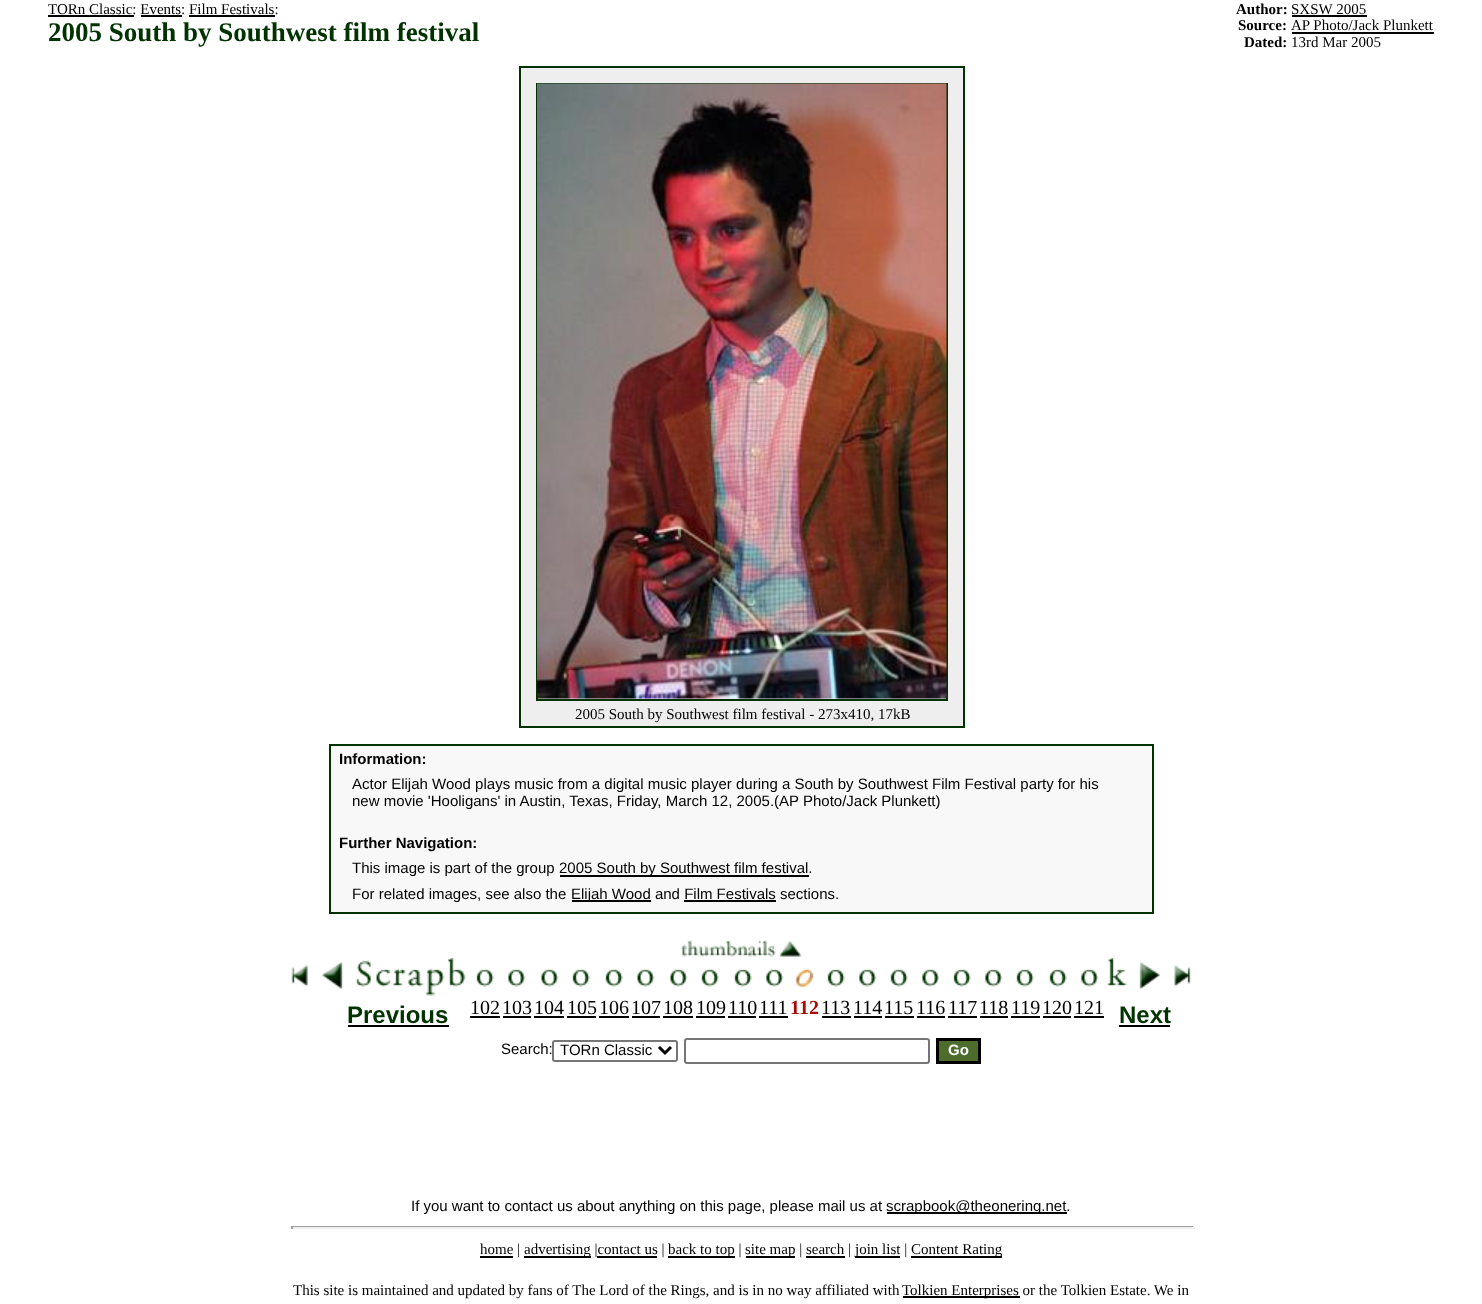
<svg xmlns="http://www.w3.org/2000/svg" xmlns:xlink="http://www.w3.org/1999/xlink" width="1482" height="1304" viewBox="0 0 1482 1304">
<style>
.cls-1{font:15px Liberation Serif;fill:#000000}
.cls-2{font:bold 27px Liberation Serif;fill:#003300}
.cls-3{font:bold 15px Liberation Serif;fill:#000000}
.cls-4{font:bold 15px Liberation Sans;fill:#000000}
.cls-5{font:15px Liberation Sans;fill:#000000}
.cls-6{font:bold 24px Liberation Sans;fill:#003300}
.cls-7{font:20px Liberation Serif;fill:#000000}
.cls-8{font:bold 20px Liberation Serif;fill:#a90a08}
.cls-9{font:bold 15px Liberation Sans;fill:#ffffff}
</style>
<rect width="100%" height="100%" fill="#ffffff"/>
<rect fill="#000000" x="48" y="15" width="86" height="2"/>
<rect fill="#000000" x="141" y="15" width="41" height="2"/>
<rect fill="#000000" x="189" y="15" width="86" height="2"/>
<rect fill="#000000" x="1292" y="15" width="75" height="2"/>
<rect fill="#000000" x="1292" y="32" width="142" height="2"/>
<rect fill="none" stroke="#003300" stroke-width="2" x="520" y="67" width="444" height="660"/>
<rect fill="#eeeeee" x="521" y="68" width="442" height="658"/>
<rect fill="none" stroke="#003300" stroke-width="2" x="537" y="84" width="410" height="616"/>
<image xlink:href="image0.png" x="537" y="83" width="410" height="616"/>
<rect fill="#f8f8f8" stroke="#003300" stroke-width="2" x="330" y="745" width="823" height="168"/>
<rect fill="#000000" x="560" y="875" width="249" height="2"/>
<rect fill="#000000" x="572" y="900" width="79" height="2"/>
<rect fill="#000000" x="684" y="900" width="92" height="2"/>
<image xlink:href="image1.png" x="680" y="940" width="122" height="17"/>
<image xlink:href="image2.png" x="291" y="965" width="17" height="22"/>
<image xlink:href="image3.png" x="322" y="958" width="144" height="38"/>
<rect fill="#000000" x="348" y="1025" width="101" height="2"/>
<image xlink:href="image4.png" x="476" y="969" width="18" height="18"/>
<rect fill="#000000" x="470" y="1016" width="30" height="2"/>
<image xlink:href="image5.png" x="508" y="969" width="18" height="18"/>
<rect fill="#000000" x="503" y="1016" width="28" height="2"/>
<image xlink:href="image6.png" x="541" y="969" width="18" height="18"/>
<rect fill="#000000" x="534" y="1016" width="30" height="2"/>
<image xlink:href="image4.png" x="572" y="969" width="18" height="18"/>
<rect fill="#000000" x="567" y="1016" width="29" height="2"/>
<image xlink:href="image4.png" x="605" y="969" width="18" height="18"/>
<rect fill="#000000" x="599" y="1016" width="30" height="2"/>
<image xlink:href="image6.png" x="637" y="969" width="18" height="18"/>
<rect fill="#000000" x="632" y="1016" width="28" height="2"/>
<image xlink:href="image6.png" x="670" y="969" width="18" height="18"/>
<rect fill="#000000" x="663" y="1016" width="30" height="2"/>
<image xlink:href="image7.png" x="701" y="969" width="18" height="18"/>
<rect fill="#000000" x="696" y="1016" width="29" height="2"/>
<image xlink:href="image4.png" x="734" y="969" width="18" height="18"/>
<rect fill="#000000" x="728" y="1016" width="28" height="2"/>
<image xlink:href="image5.png" x="766" y="969" width="18" height="18"/>
<rect fill="#000000" x="759" y="1016" width="29" height="2"/>
<image xlink:href="image8.png" x="795" y="968" width="19" height="20"/>
<image xlink:href="image7.png" x="827" y="969" width="18" height="18"/>
<rect fill="#000000" x="822" y="1016" width="29" height="2"/>
<image xlink:href="image5.png" x="859" y="969" width="18" height="18"/>
<rect fill="#000000" x="854" y="1016" width="28" height="2"/>
<image xlink:href="image7.png" x="890" y="969" width="18" height="18"/>
<rect fill="#000000" x="885" y="1016" width="29" height="2"/>
<image xlink:href="image5.png" x="922" y="969" width="18" height="18"/>
<rect fill="#000000" x="917" y="1016" width="28" height="2"/>
<image xlink:href="image7.png" x="953" y="969" width="18" height="18"/>
<rect fill="#000000" x="948" y="1016" width="29" height="2"/>
<image xlink:href="image5.png" x="985" y="969" width="18" height="18"/>
<rect fill="#000000" x="980" y="1016" width="28" height="2"/>
<image xlink:href="image7.png" x="1016" y="969" width="18" height="18"/>
<rect fill="#000000" x="1011" y="1016" width="29" height="2"/>
<image xlink:href="image4.png" x="1049" y="969" width="18" height="18"/>
<rect fill="#000000" x="1043" y="1016" width="28" height="2"/>
<image xlink:href="image5.png" x="1081" y="969" width="18" height="18"/>
<rect fill="#000000" x="1074" y="1016" width="30" height="2"/>
<image xlink:href="image9.png" x="1107" y="958" width="53" height="32"/>
<image xlink:href="image10.png" x="1174" y="965" width="17" height="22"/>
<rect fill="#000000" x="1119" y="1025" width="51" height="2"/>
<rect fill="none" stroke="#767676" stroke-width="2" x="553" y="1041" width="124" height="20" rx="2"/>
<path fill="none" stroke="#000000" stroke-width="3" d="M659 1047L665 1053L671 1047"/>
<rect fill="none" stroke="#767676" stroke-width="2" x="685" y="1039" width="244" height="24" rx="2"/>
<rect fill="#4d6d2d" stroke="#000000" stroke-width="3" x="937.5" y="1039.5" width="42" height="23"/>
<rect fill="#000000" x="887" y="1212" width="180" height="2"/>
<rect fill="#9f9f9f" x="291" y="1226" width="903" height="1"/>
<rect fill="#eeeeee" x="1193" y="1226" width="2" height="3"/>
<rect fill="#eeeeee" x="291" y="1227" width="903" height="2"/>
<rect fill="#9f9f9f" x="291" y="1226" width="2" height="3"/>
<rect fill="#000000" x="480" y="1256" width="33" height="2"/>
<rect fill="#000000" x="524" y="1256" width="67" height="2"/>
<rect fill="#000000" x="597" y="1256" width="60" height="2"/>
<rect fill="#000000" x="668" y="1256" width="67" height="2"/>
<rect fill="#000000" x="746" y="1256" width="49" height="2"/>
<rect fill="#000000" x="806" y="1256" width="39" height="2"/>
<rect fill="#000000" x="855" y="1256" width="45" height="2"/>
<rect fill="#000000" x="911" y="1256" width="91" height="2"/>
<rect fill="#000000" x="903" y="1296" width="117" height="2"/>
<text class="cls-1" x="48" y="14">TORn Classic: Events: Film Festivals:</text>
<text class="cls-2" x="48" y="41">2005 South by Southwest film festival</text>
<text class="cls-3" x="1236" y="14">Author:</text>
<text class="cls-1" x="1291" y="14">SXSW 2005</text>
<text class="cls-3" x="1238" y="30">Source:</text>
<text class="cls-1" x="1291" y="30">AP Photo/Jack Plunkett</text>
<text class="cls-3" x="1244" y="47">Dated:</text>
<text class="cls-1" x="1291" y="47">13rd Mar 2005</text>
<text class="cls-1" x="575" y="719">2005 South by Southwest film festival - 273x410, 17kB</text>
<text class="cls-4" x="339" y="764">Information:</text>
<text class="cls-5"><tspan x="352" y="789">Actor Elijah Wood plays music from a digital music player during a South by Southwest Film Festival party for his</tspan><tspan x="352" y="806">new movie 'Hooligans' in Austin, Texas, Friday, March 12, 2005.(AP Photo/Jack Plunkett)</tspan></text>
<text class="cls-4" x="339" y="848">Further Navigation:</text>
<text class="cls-5" x="352" y="873">This image is part of the group</text>
<text class="cls-5" x="559" y="873">2005 South by Southwest film festival.</text>
<text class="cls-5" x="352" y="899">For related images, see also the</text>
<text class="cls-5" x="571" y="899">Elijah Wood and Film Festivals sections.</text>
<text class="cls-6" x="347" y="1023">Previous</text>
<text class="cls-7" x="470" y="1014">102</text>
<text class="cls-7" x="502" y="1014">103</text>
<text class="cls-7" x="534" y="1014">104</text>
<text class="cls-7" x="567" y="1014">105</text>
<text class="cls-7" x="599" y="1014">106</text>
<text class="cls-7" x="631" y="1014">107</text>
<text class="cls-7" x="663" y="1014">108</text>
<text class="cls-7" x="696" y="1014">109</text>
<text class="cls-7" x="728" y="1014">110</text>
<text class="cls-7" x="759" y="1014">111</text>
<text class="cls-8" x="790" y="1014">112</text>
<text class="cls-7" x="821" y="1014">113</text>
<text class="cls-7" x="853" y="1014">114</text>
<text class="cls-7" x="884" y="1014">115</text>
<text class="cls-7" x="916" y="1014">116</text>
<text class="cls-7" x="948" y="1014">117</text>
<text class="cls-7" x="979" y="1014">118</text>
<text class="cls-7" x="1011" y="1014">119</text>
<text class="cls-7" x="1042" y="1014">120</text>
<text class="cls-7" x="1074" y="1014">121</text>
<text class="cls-6" x="1119" y="1023">Next</text>
<text class="cls-5" x="501" y="1054">Search:</text>
<text class="cls-5" x="560" y="1055">TORn Classic</text>
<text class="cls-9" x="948" y="1055">Go</text>
<text class="cls-5" x="411" y="1211">If you want to contact us about anything on this page, please mail us at</text>
<text class="cls-5" x="886" y="1211">scrapbook@theonering.net.</text>
<text class="cls-1" x="480" y="1254">home |</text>
<text class="cls-1" x="524" y="1254">advertising |contact us |</text>
<text class="cls-1" x="668" y="1254">back to top |</text>
<text class="cls-1" x="745" y="1254">site map | search |</text>
<text class="cls-1" x="855" y="1254">join list |</text>
<text class="cls-1" x="911" y="1254">Content Rating</text>
<text class="cls-1" x="293" y="1295">This site is maintained and updated by fans of The Lord of the Rings, and is in no way affiliated with</text>
<text class="cls-1" x="902" y="1295">Tolkien Enterprises or the Tolkien Estate. We in</text>
</svg>
